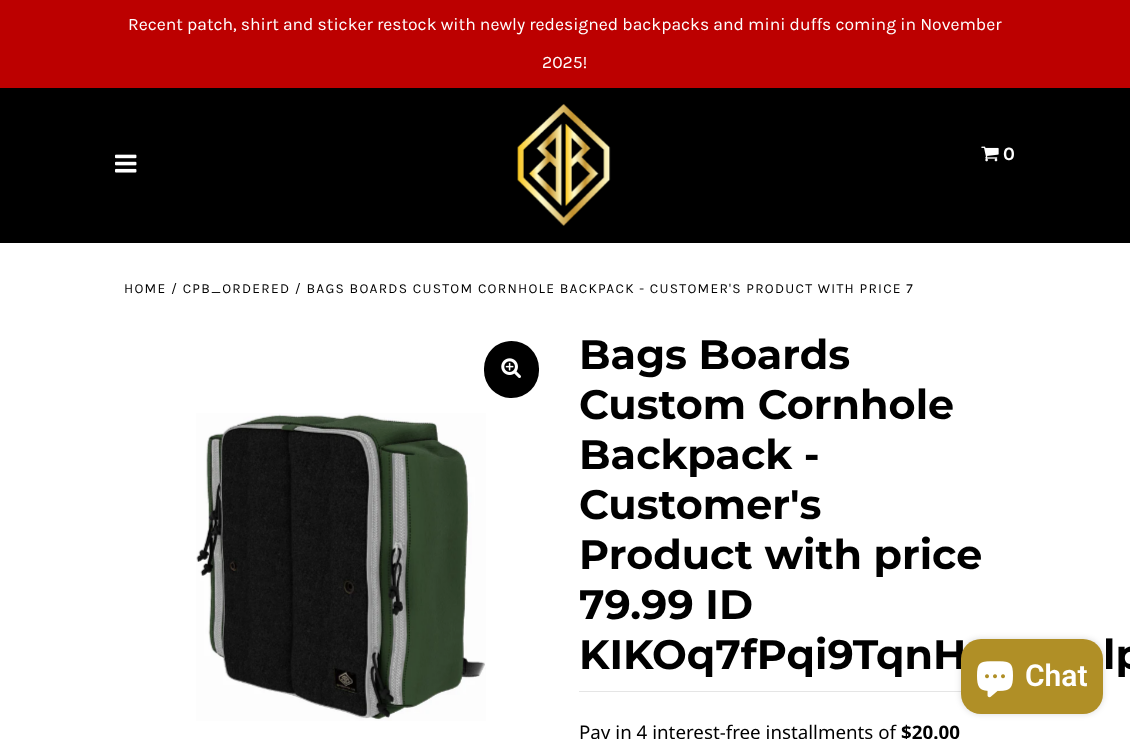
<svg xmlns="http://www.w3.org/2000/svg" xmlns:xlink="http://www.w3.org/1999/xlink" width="1130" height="739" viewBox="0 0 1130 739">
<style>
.cls-1{font:17.5px Karla;fill:#ffffff}
.cls-2{font:bold 18.75px Karla;fill:#ffffff}
.cls-3{font:13.75px Karla;letter-spacing:1.25px;fill:#000000}
.cls-4{font:bold 41.25px Montserrat;fill:#000000}
.cls-5{font:18.75px Noto Sans;fill:#000000}
.cls-6{font:bold 18.75px Noto Sans;fill:#000000}
.cls-7{font:600 30px Roboto;fill:#ffffff}
</style>
<rect width="100%" height="100%" fill="#ffffff"/>
<rect fill="#000000" x="0" y="88" width="1130" height="155"/>
<rect fill="#bc0000" x="0" y="0" width="1130" height="88"/>
<image xlink:href="image0.png" x="115" y="154" width="22" height="19"/>
<image xlink:href="image1.png" x="517" y="104" width="94" height="122"/>
<image xlink:href="image2.png" x="981" y="146" width="18" height="16"/>
<rect fill="#000000" x="484" y="341" width="55" height="57" rx="27.5"/>
<image xlink:href="image3.png" x="501" y="358" width="20" height="20"/>
<image xlink:href="image4.png" x="196" y="413" width="290" height="308"/>
<rect fill="#e5e5e5" x="579" y="691" width="382" height="1"/>
<rect fill="#000000" fill-opacity="0.15" filter="blur(3px)" x="961" y="639" width="142" height="75" rx="20"/>
<text class="cls-1" x="128" y="30">Recent patch, shirt and sticker restock with newly redesigned backpacks and mini duffs coming in November</text>
<text class="cls-1" x="542" y="68">2025!</text>
<text class="cls-2" x="1003" y="160">0</text>
<text class="cls-3" x="124" y="293">HOME / CPB_ORDERED / BAGS BOARDS CUSTOM CORNHOLE BACKPACK - CUSTOMER'S PRODUCT WITH PRICE 7</text>
<text class="cls-4"><tspan x="579" y="369">Bags Boards</tspan><tspan x="579" y="419">Custom Cornhole</tspan><tspan x="579" y="469">Backpack -</tspan><tspan x="579" y="519">Customer's</tspan><tspan x="579" y="569">Product with price</tspan><tspan x="579" y="619">79.99 ID</tspan><tspan x="579" y="669">KIKOq7fPqi9TqnH</tspan></text>
<text class="cls-4" x="1103" y="669">lp</text>
<text class="cls-5" x="579" y="739">Pay in 4 interest-free installments of</text>
<text class="cls-6" x="901" y="739">$20.00</text>
<rect fill="#b08f26" x="961" y="639" width="142" height="75" rx="20"/>
<image xlink:href="image5.png" x="977" y="661" width="36" height="37"/>
<text class="cls-7" x="1025" y="686">Chat</text>
</svg>
